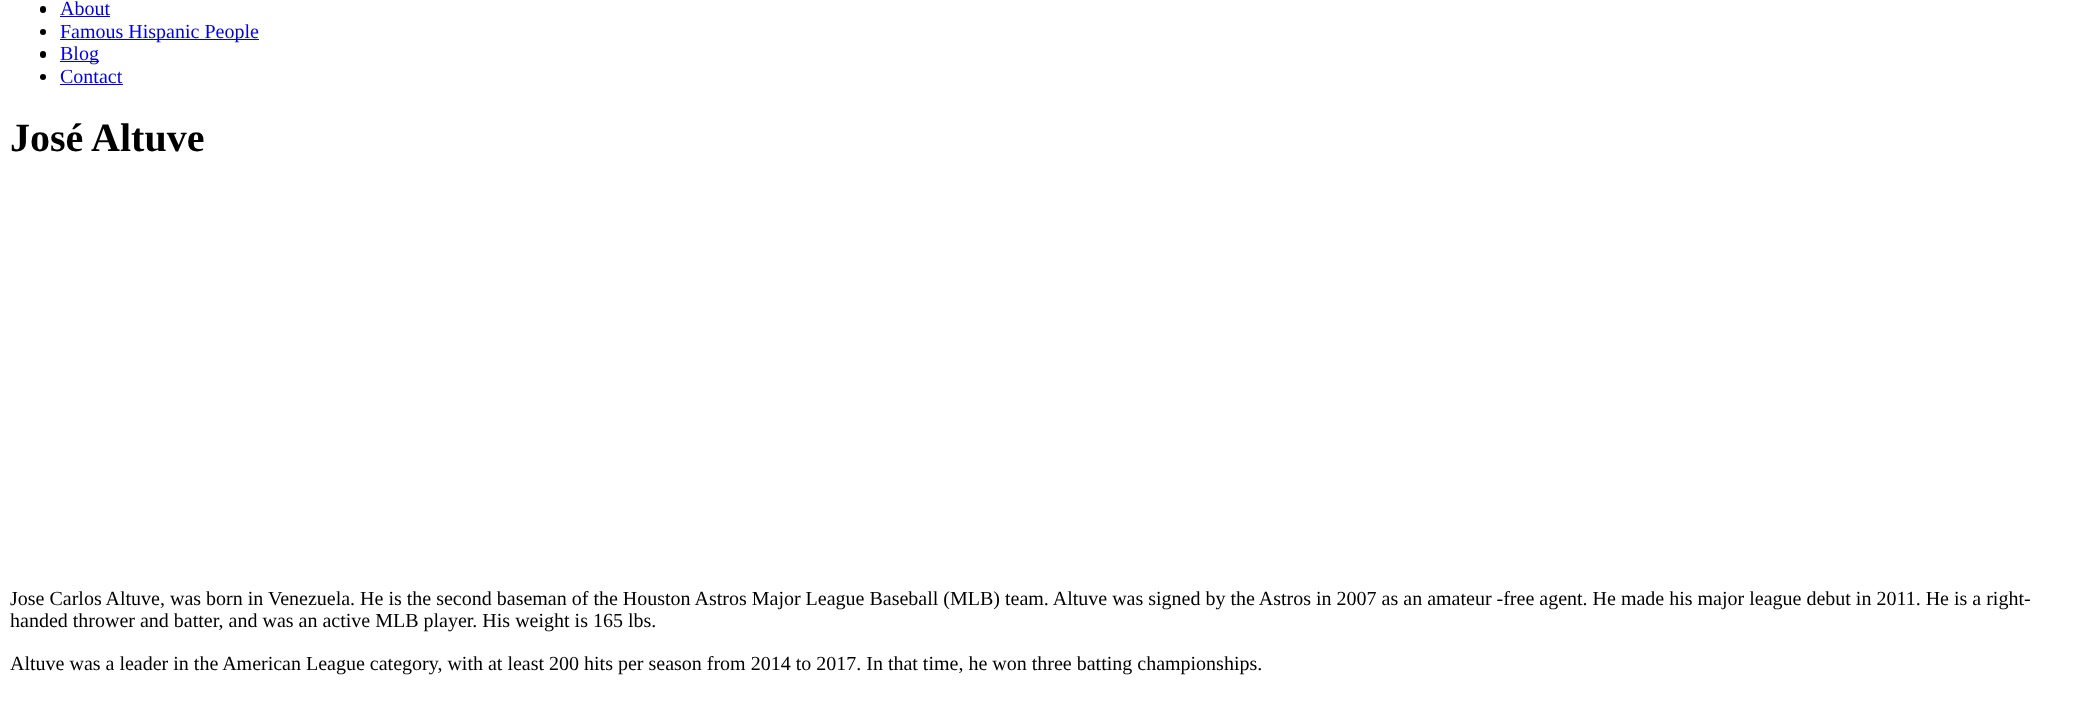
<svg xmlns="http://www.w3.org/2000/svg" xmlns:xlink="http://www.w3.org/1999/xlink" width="2086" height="705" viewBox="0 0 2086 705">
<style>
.cls-1{font:20px Liberation Serif;fill:#0000ee}
.cls-2{font:bold 40px Liberation Serif;fill:#000000}
.cls-3{font:20px Liberation Serif;fill:#000000}
</style>
<rect width="100%" height="100%" fill="#ffffff"/>
<rect fill="#000000" x="40" y="6" width="6" height="7" rx="3"/>
<rect fill="#0000ee" x="60" y="16" width="50" height="1"/>
<circle fill="#000000" cx="43" cy="32" r="3"/>
<rect fill="#0000ee" x="60" y="39" width="199" height="1"/>
<rect fill="#000000" x="40" y="51" width="6" height="7" rx="3"/>
<rect fill="#0000ee" x="60" y="61" width="39" height="1"/>
<circle fill="#000000" cx="43" cy="77" r="3"/>
<rect fill="#0000ee" x="60" y="84" width="63" height="1"/>
<text class="cls-1"><tspan x="60" y="15">About</tspan><tspan x="60" y="38">Famous Hispanic People</tspan><tspan x="60" y="60">Blog</tspan><tspan x="60" y="83">Contact</tspan></text>
<text class="cls-2" x="10" y="151">José Altuve</text>
<text class="cls-3"><tspan x="10" y="605">Jose Carlos Altuve, was born in Venezuela. He is the second baseman of the Houston Astros Major League Baseball (MLB) team. Altuve was signed by the Astros in 2007 as an amateur -free agent. He made his major league debut in 2011. He is a right-</tspan><tspan x="10" y="627">handed thrower and batter, and was an active MLB player. His weight is 165 lbs.</tspan></text>
<text class="cls-3" x="10" y="670">Altuve was a leader in the American League category, with at least 200 hits per season from 2014 to 2017. In that time, he won three batting championships.</text>
</svg>
